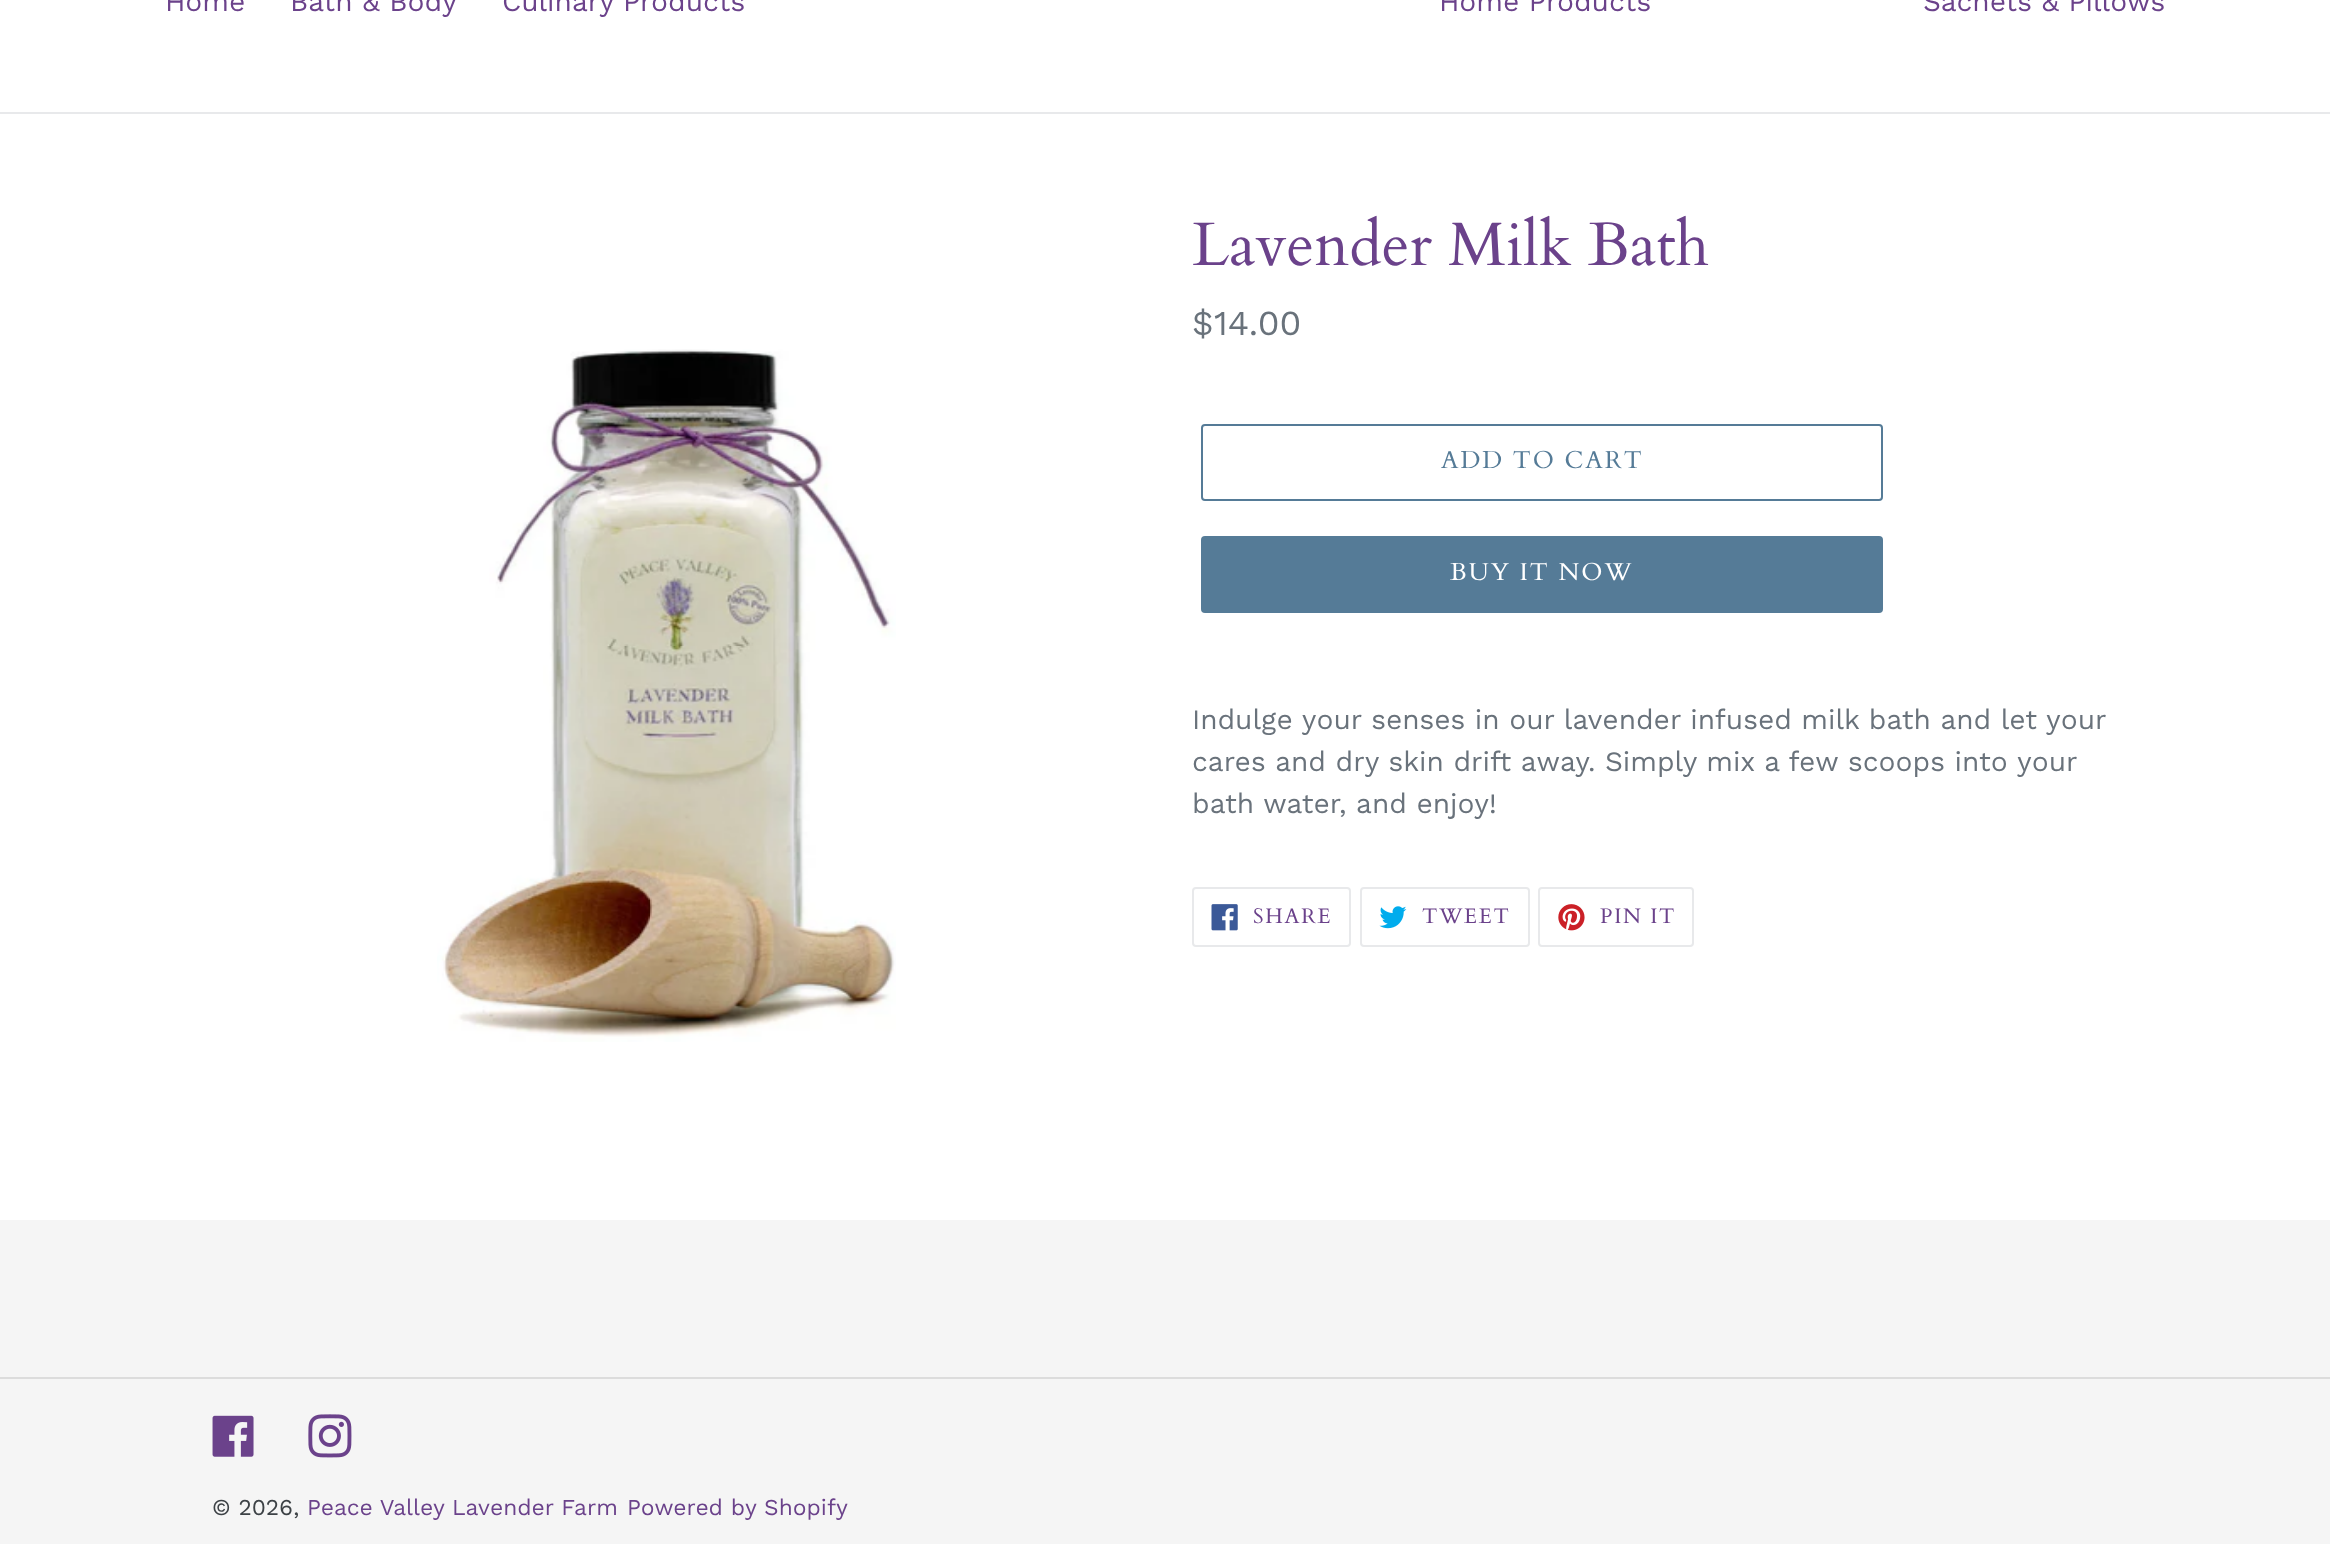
<svg xmlns="http://www.w3.org/2000/svg" xmlns:xlink="http://www.w3.org/1999/xlink" width="2330" height="1544" viewBox="0 0 2330 1544">
<style>
.cls-1{font:28px Work Sans;fill:#6b428b}
.cls-2{font:61.25px Cardo;fill:#6b428b}
.cls-3{font:35px Work Sans;fill:#69727b}
.cls-4{font:24.5px Cardo;letter-spacing:2px;fill:#557b97}
.cls-5{font:24.5px Cardo;letter-spacing:2px;fill:#ffffff}
.cls-6{font:28px Work Sans;fill:#69727b}
.cls-7{font:21px Cardo;letter-spacing:1.75px;fill:#6b428b}
.cls-8{font:22.75px Work Sans;fill:#3d4246}
.cls-9{font:22.75px Work Sans;fill:#6b428b}
</style>
<rect width="100%" height="100%" fill="#ffffff"/>
<rect fill="#e8e9eb" x="0" y="112" width="2330" height="2"/>
<image xlink:href="image0.png" x="437" y="349" width="459" height="693"/>
<rect fill="none" stroke="#557b97" stroke-width="2" x="1202" y="425" width="680" height="75" rx="3"/>
<rect fill="#557b97" x="1201" y="536" width="682" height="77" rx="4"/>
<rect fill="none" stroke="#e8e9eb" stroke-width="2" x="1193" y="888" width="157" height="58" rx="3"/>
<image xlink:href="image1.png" x="1211" y="904" width="27" height="27"/>
<rect fill="none" stroke="#e8e9eb" stroke-width="2" x="1361" y="888" width="168" height="58" rx="3"/>
<image xlink:href="image2.png" x="1379" y="906" width="28" height="23"/>
<rect fill="none" stroke="#e8e9eb" stroke-width="2" x="1539" y="888" width="154" height="58" rx="3"/>
<image xlink:href="image3.png" x="1558" y="904" width="27" height="27"/>
<rect fill="#f5f5f5" x="0" y="1220" width="2330" height="324"/>
<rect fill="#dcdcdc" x="0" y="1377" width="2330" height="2"/>
<image xlink:href="image4.png" x="212" y="1415" width="42" height="42"/>
<image xlink:href="image5.png" x="308" y="1414" width="44" height="44"/>
<text class="cls-1" x="165" y="11">Home</text>
<text class="cls-1" x="290" y="11">Bath &amp; Body</text>
<text class="cls-1" x="502" y="11">Culinary Products</text>
<text class="cls-1" x="1439" y="11">Home Products</text>
<text class="cls-1" x="1923" y="11">Sachets &amp; Pillows</text>
<text class="cls-2" x="1192" y="265">Lavender Milk Bath</text>
<text class="cls-3" x="1192" y="335">$14.00</text>
<text class="cls-4" x="1441" y="468">ADD TO CART</text>
<text class="cls-5" x="1450" y="580">BUY IT NOW</text>
<text class="cls-6"><tspan x="1192" y="729">Indulge your senses in our lavender infused milk bath and let your</tspan><tspan x="1192" y="771">cares and dry skin drift away. Simply mix a few scoops into your</tspan><tspan x="1192" y="813">bath water, and enjoy!</tspan></text>
<text class="cls-7" x="1253" y="923">SHARE</text>
<text class="cls-7" x="1422" y="923">TWEET</text>
<text class="cls-7" x="1600" y="923">PIN IT</text>
<text class="cls-8" x="212" y="1515">© 2026,</text>
<text class="cls-9" x="307" y="1515">Peace Valley Lavender Farm</text>
<text class="cls-9" x="627" y="1515">Powered by Shopify</text>
</svg>
